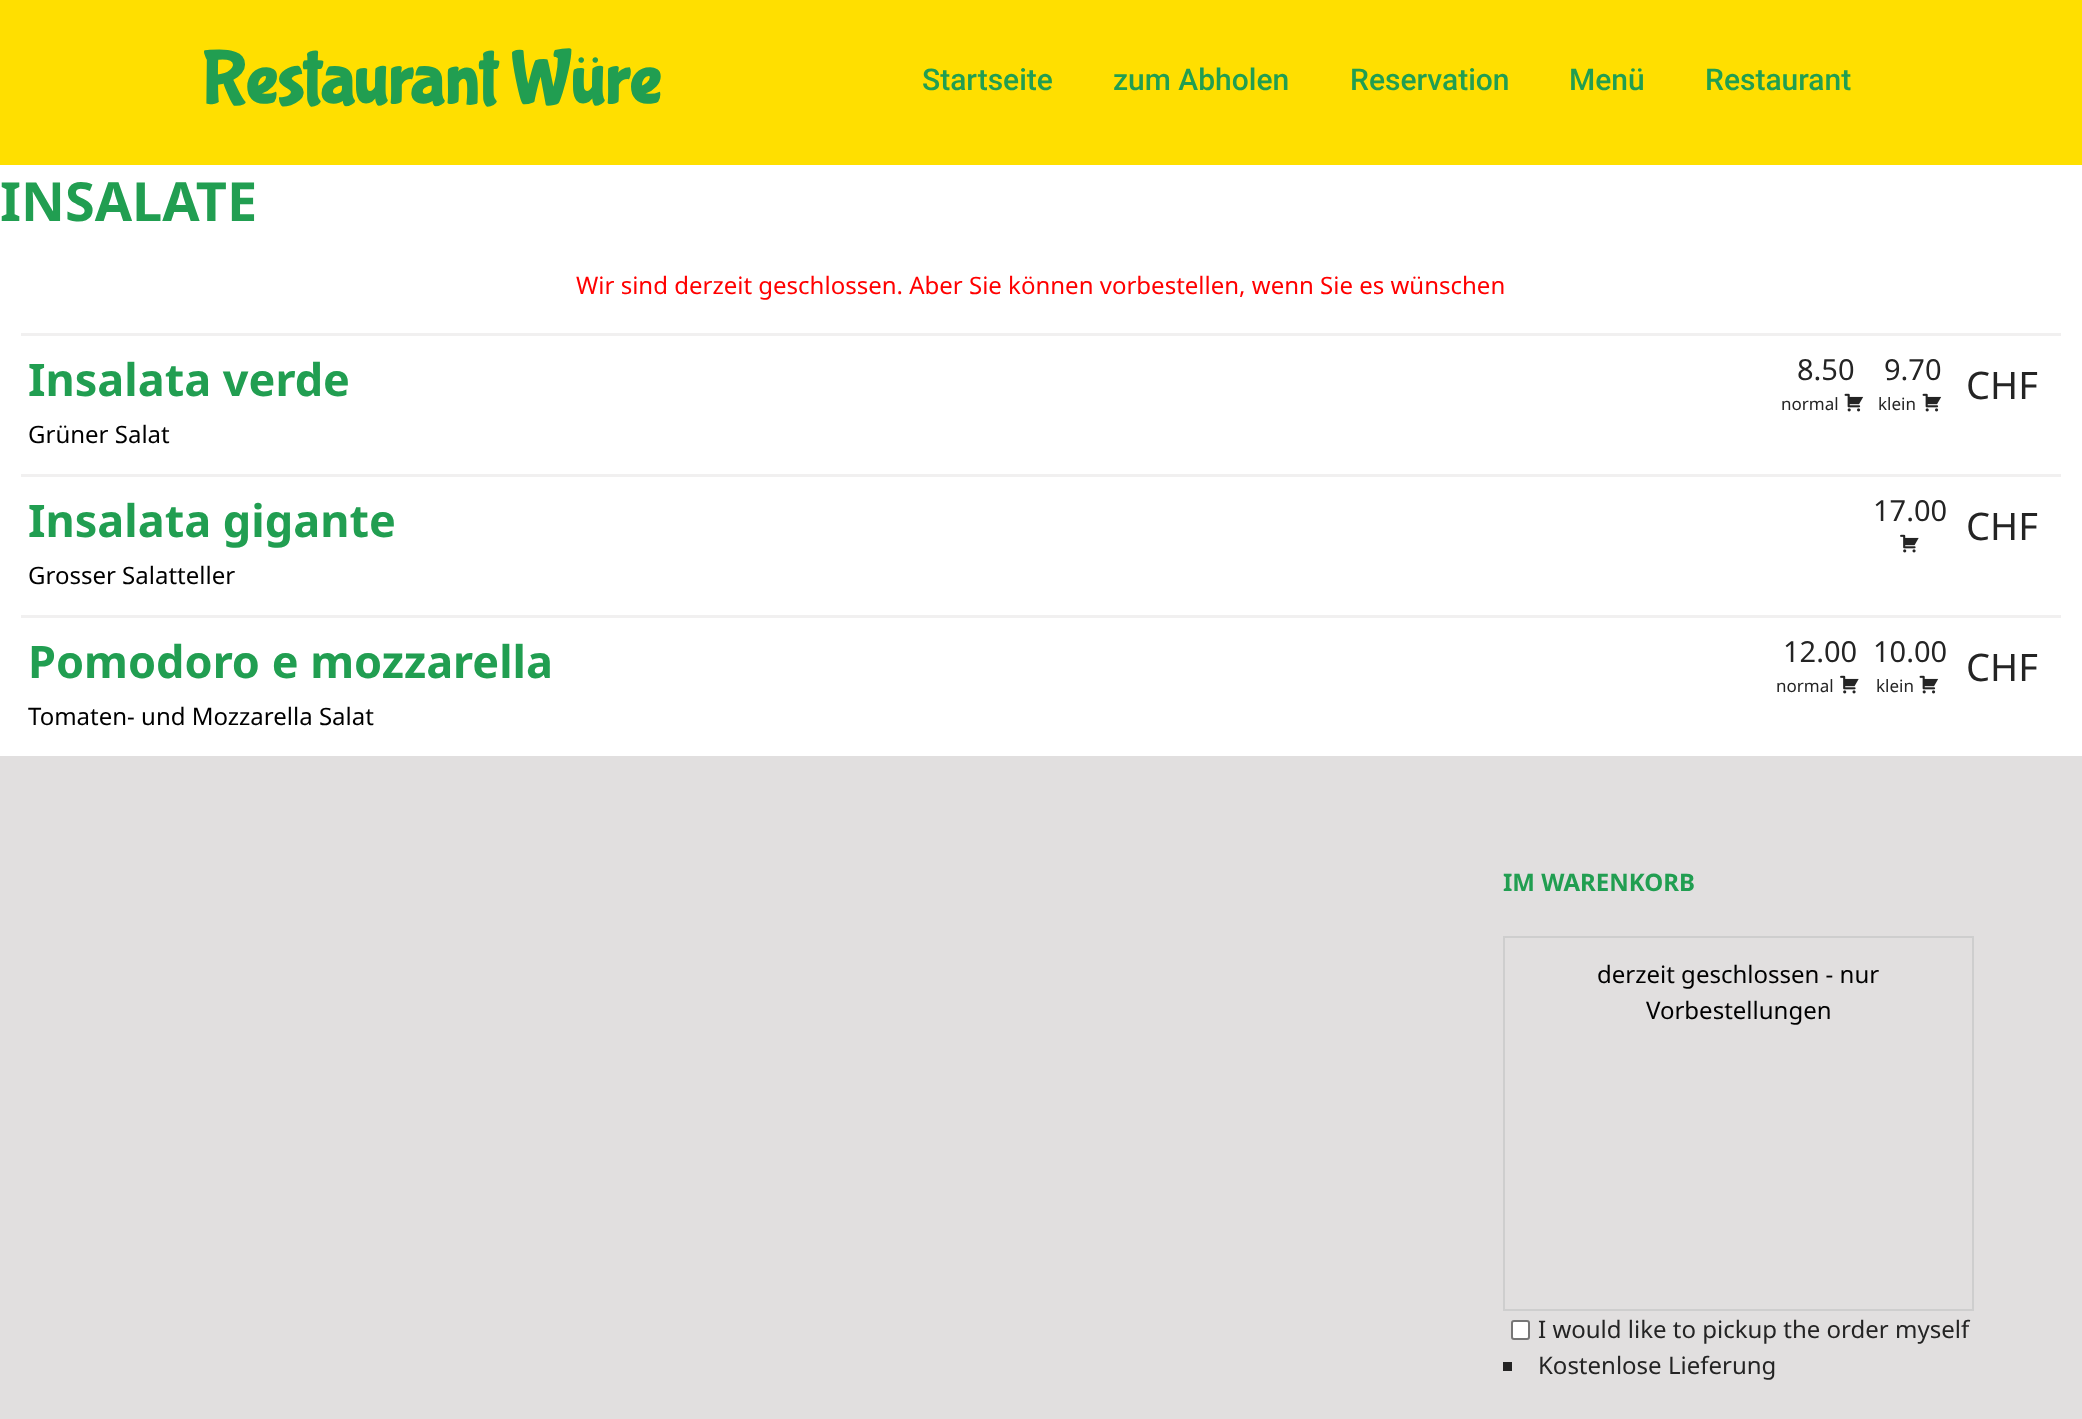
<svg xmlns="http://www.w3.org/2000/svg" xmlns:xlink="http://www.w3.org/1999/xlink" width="2082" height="1419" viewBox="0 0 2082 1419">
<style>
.cls-1{font:bold 75px Bubblegum Sans;fill:#219e51}
.cls-2{font:500 30px Roboto;fill:#219e51}
.cls-3{font:bold 54px Noto Sans;fill:#219e51}
.cls-4{font:24px Noto Sans;fill:#ff0000}
.cls-5{font:bold 45px Noto Sans;fill:#219e51}
.cls-6{font:29px Noto Sans;fill:#242424}
.cls-7{font:17px Noto Sans;fill:#242424}
.cls-8{font:38px Noto Sans;fill:#242424}
.cls-9{font:24px Noto Sans;fill:#000000}
.cls-10{font:bold 24px Noto Sans;fill:#219e51}
.cls-11{font:24px Noto Sans;fill:#242424}
</style>
<rect width="100%" height="100%" fill="#e1dfdf"/>
<rect fill="#ffdf00" x="0" y="0" width="2082" height="165"/>
<rect fill="#ffffff" x="0" y="165" width="2082" height="591"/>
<rect fill="#f1f0f0" x="21" y="333" width="2040" height="3"/>
<image xlink:href="image0.png" x="1844" y="393" width="20" height="19"/>
<image xlink:href="image0.png" x="1922" y="393" width="20" height="19"/>
<rect fill="#f1f0f0" x="21" y="474" width="2040" height="3"/>
<image xlink:href="image1.png" x="1900" y="534" width="19" height="19"/>
<rect fill="#f1f0f0" x="21" y="615" width="2040" height="3"/>
<image xlink:href="image1.png" x="1840" y="675" width="19" height="19"/>
<image xlink:href="image0.png" x="1919" y="675" width="20" height="19"/>
<rect fill="none" stroke="#cecece" stroke-width="2" x="1504" y="937" width="469" height="373"/>
<rect fill="#ffffff" stroke="#767676" stroke-width="2" x="1512" y="1321" width="17" height="18" rx="2"/>
<rect fill="#242424" x="1503" y="1362" width="9" height="9"/>
<text class="cls-1" x="201" y="102">Restaurant Würe</text>
<text class="cls-2" x="922" y="90">Startseite</text>
<text class="cls-2" x="1113" y="90">zum Abholen</text>
<text class="cls-2" x="1350" y="90">Reservation</text>
<text class="cls-2" x="1569" y="90">Menü</text>
<text class="cls-2" x="1705" y="90">Restaurant</text>
<text class="cls-3" x="0" y="221">INSALATE</text>
<text class="cls-4" x="576" y="294">Wir sind derzeit geschlossen. Aber Sie können vorbestellen, wenn Sie es wünschen</text>
<text class="cls-5" x="28" y="396">Insalata verde</text>
<text class="cls-6" x="1797" y="380">8.50</text>
<text class="cls-7" x="1781" y="410">normal</text>
<text class="cls-6" x="1884" y="380">9.70</text>
<text class="cls-7" x="1878" y="410">klein</text>
<text class="cls-8" x="1966" y="399">CHF</text>
<text class="cls-9" x="28" y="443">Grüner Salat</text>
<text class="cls-5" x="28" y="537">Insalata gigante</text>
<text class="cls-6" x="1873" y="521">17.00</text>
<text class="cls-8" x="1966" y="540">CHF</text>
<text class="cls-9" x="28" y="584">Grosser Salatteller</text>
<text class="cls-5" x="28" y="678">Pomodoro e mozzarella</text>
<text class="cls-6" x="1783" y="662">12.00</text>
<text class="cls-7" x="1776" y="692">normal</text>
<text class="cls-6" x="1873" y="662">10.00</text>
<text class="cls-7" x="1876" y="692">klein</text>
<text class="cls-8" x="1966" y="681">CHF</text>
<text class="cls-9" x="28" y="725">Tomaten- und Mozzarella Salat</text>
<text class="cls-10" x="1503" y="891">IM WARENKORB</text>
<text class="cls-9" x="1597" y="983">derzeit geschlossen - nur</text>
<text class="cls-9" x="1646" y="1019">Vorbestellungen</text>
<text class="cls-11"><tspan x="1538" y="1338">I would like to pickup the order myself</tspan><tspan x="1538" y="1374">Kostenlose Lieferung</tspan></text>
</svg>
